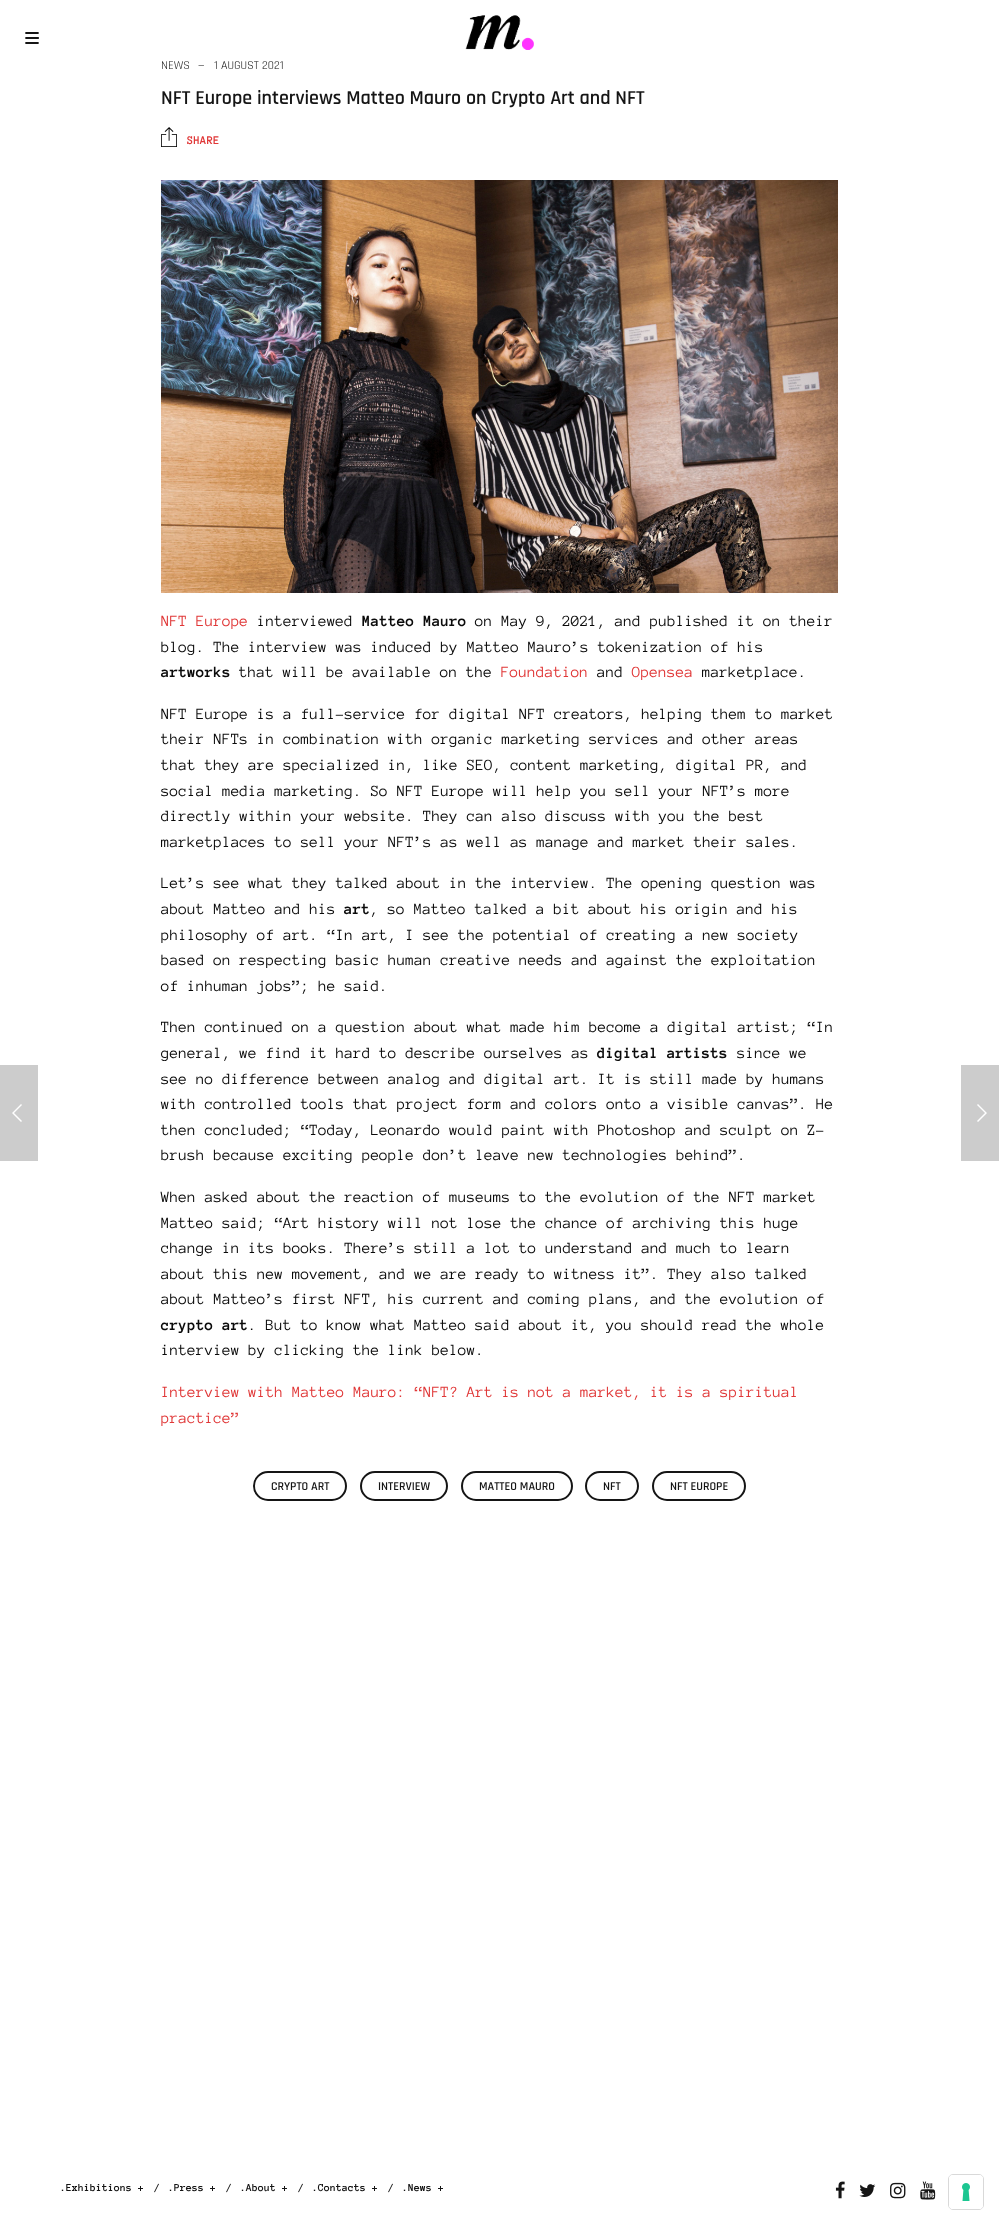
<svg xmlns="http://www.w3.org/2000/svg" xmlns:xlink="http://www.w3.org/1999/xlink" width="999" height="2225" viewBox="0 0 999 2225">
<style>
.cls-1{font:12px Rajdhani;fill:#151515}
.cls-2{font:12px Rajdhani;fill:#0a0a0a}
.cls-3{font:600 20px Rajdhani;fill:#151515}
.cls-4{font:bold 12px Anonymous Pro;fill:#e03737}
.cls-5{font:16px Anonymous Pro;fill:#e03737}
.cls-6{font:16px Anonymous Pro;fill:#0a0a0a}
.cls-7{font:bold 16px Anonymous Pro;fill:#0a0a0a}
.cls-8{font:600 12px Rajdhani;fill:#151515}
.cls-9{font:bold 11px Anonymous Pro;fill:#151515}
.cls-10{font:bold 11px Anonymous Pro;fill:#0a0a0a}
</style>
<rect width="100%" height="100%" fill="#ffffff"/>
<image xlink:href="image0.png" x="25" y="32" width="14" height="12"/>
<image xlink:href="image1.png" x="465" y="15" width="69" height="35"/>
<rect fill="#cccccc" x="0" y="1065" width="38" height="96"/>
<path fill="#ffffff" fill-rule="evenodd" d="M22 1105L21 1104L12 1113L21 1122L22 1121L14 1113Z"/>
<image xlink:href="image2.png" x="161" y="127" width="16" height="20"/>
<image xlink:href="image3.png" x="161" y="180" width="677" height="413"/>
<rect fill="none" stroke="#151515" stroke-width="2" x="254" y="1472" width="92" height="28" rx="14"/>
<rect fill="none" stroke="#151515" stroke-width="2" x="361" y="1472" width="86" height="28" rx="14"/>
<rect fill="none" stroke="#151515" stroke-width="2" x="462" y="1472" width="110" height="28" rx="14"/>
<rect fill="none" stroke="#151515" stroke-width="2" x="586" y="1472" width="52" height="28" rx="14"/>
<rect fill="none" stroke="#151515" stroke-width="2" x="653" y="1472" width="92" height="28" rx="14"/>
<rect fill="#cccccc" x="961" y="1065" width="38" height="96"/>
<path fill="#ffffff" fill-rule="evenodd" d="M977 1121L978 1122L987 1113L978 1104L977 1105L985 1113Z"/>
<image xlink:href="image4.png" x="835" y="2181" width="10" height="18"/>
<image xlink:href="image5.png" x="859" y="2184" width="17" height="13"/>
<image xlink:href="image6.png" x="890" y="2182" width="16" height="17"/>
<image xlink:href="image7.png" x="920" y="2181" width="16" height="19"/>
<rect fill="none" stroke="#d9d9d9" x="948.5" y="2174.5" width="35" height="35" rx="4.5"/>
<rect fill="#ffffff" x="949" y="2175" width="34" height="34" rx="4"/>
<image xlink:href="image8.png" x="962" y="2183" width="8" height="18"/>
<text class="cls-1" x="161" y="69">NEWS</text>
<text class="cls-2" x="198" y="69">—</text>
<text class="cls-2" x="214" y="69">1 AUGUST 2021</text>
<text class="cls-3" x="161" y="104">NFT Europe interviews Matteo Mauro on Crypto Art and NFT</text>
<text class="cls-4" x="187" y="144">SHARE</text>
<text class="cls-5" x="161" y="626">NFT Europe</text>
<text class="cls-6" x="257" y="626">interviewed</text>
<text class="cls-7" x="362" y="626">Matteo Mauro</text>
<text class="cls-6" x="475" y="626">on May 9, 2021, and published it on their</text>
<text class="cls-6" x="161" y="652">blog. The interview was induced by Matteo Mauro’s tokenization of his</text>
<text class="cls-7" x="161" y="677">artworks</text>
<text class="cls-6" x="239" y="677">that will be available on the</text>
<text class="cls-5" x="501" y="677">Foundation</text>
<text class="cls-6" x="597" y="677">and</text>
<text class="cls-5" x="632" y="677">Opensea</text>
<text class="cls-6" x="702" y="677">marketplace.</text>
<text class="cls-6"><tspan x="161" y="719">NFT Europe is a full-service for digital NFT creators, helping them to market</tspan><tspan x="161" y="744">their NFTs in combination with organic marketing services and other areas</tspan><tspan x="161" y="770">that they are specialized in, like SEO, content marketing, digital PR, and</tspan><tspan x="161" y="796">social media marketing. So NFT Europe will help you sell your NFT’s more</tspan><tspan x="161" y="821">directly within your website. They can also discuss with you the best</tspan><tspan x="161" y="847">marketplaces to sell your NFT’s as well as manage and market their sales.</tspan></text>
<text class="cls-6"><tspan x="161" y="888">Let’s see what they talked about in the interview. The opening question was</tspan><tspan x="161" y="914">about Matteo and his</tspan></text>
<text class="cls-7" x="344" y="914">art</text>
<text class="cls-6" x="370" y="914">, so Matteo talked a bit about his origin and his</text>
<text class="cls-6"><tspan x="161" y="940">philosophy of art. “In art, I see the potential of creating a new society</tspan><tspan x="161" y="965">based on respecting basic human creative needs and against the exploitation</tspan><tspan x="161" y="991">of inhuman jobs”; he said.</tspan></text>
<text class="cls-6"><tspan x="161" y="1032">Then continued on a question about what made him become a digital artist; “In</tspan><tspan x="161" y="1058">general, we find it hard to describe ourselves as</tspan></text>
<text class="cls-7" x="597" y="1058">digital artists</text>
<text class="cls-6" x="737" y="1058">since we</text>
<text class="cls-6"><tspan x="161" y="1084">see no difference between analog and digital art. It is still made by humans</tspan><tspan x="161" y="1109">with controlled tools that project form and colors onto a visible canvas”. He</tspan><tspan x="161" y="1135">then concluded; “Today, Leonardo would paint with Photoshop and sculpt on Z-</tspan><tspan x="161" y="1160">brush because exciting people don’t leave new technologies behind”.</tspan></text>
<text class="cls-6"><tspan x="161" y="1202">When asked about the reaction of museums to the evolution of the NFT market</tspan><tspan x="161" y="1228">Matteo said; “Art history will not lose the chance of archiving this huge</tspan><tspan x="161" y="1253">change in its books. There’s still a lot to understand and much to learn</tspan><tspan x="161" y="1279">about this new movement, and we are ready to witness it”. They also talked</tspan><tspan x="161" y="1304">about Matteo’s first NFT, his current and coming plans, and the evolution of</tspan></text>
<text class="cls-7" x="161" y="1330">crypto art</text>
<text class="cls-6" x="248" y="1330">. But to know what Matteo said about it, you should read the whole</text>
<text class="cls-6" x="161" y="1355">interview by clicking the link below.</text>
<text class="cls-5"><tspan x="161" y="1397">Interview with Matteo Mauro: “NFT? Art is not a market, it is a spiritual</tspan><tspan x="161" y="1423">practice”</tspan></text>
<text class="cls-8" x="271" y="1490">CRYPTO ART</text>
<text class="cls-8" x="378" y="1490">INTERVIEW</text>
<text class="cls-8" x="479" y="1490">MATTEO MAURO</text>
<text class="cls-8" x="603" y="1490">NFT</text>
<text class="cls-8" x="670" y="1490">NFT EUROPE</text>
<text class="cls-9" x="60" y="2191">.Exhibitions +</text>
<text class="cls-10" x="154" y="2191">/</text>
<text class="cls-9" x="168" y="2191">.Press +</text>
<text class="cls-10" x="226" y="2191">/</text>
<text class="cls-9" x="240" y="2191">.About +</text>
<text class="cls-10" x="298" y="2191">/</text>
<text class="cls-9" x="312" y="2191">.Contacts +</text>
<text class="cls-10" x="388" y="2191">/</text>
<text class="cls-9" x="402" y="2191">.News +</text>
</svg>
